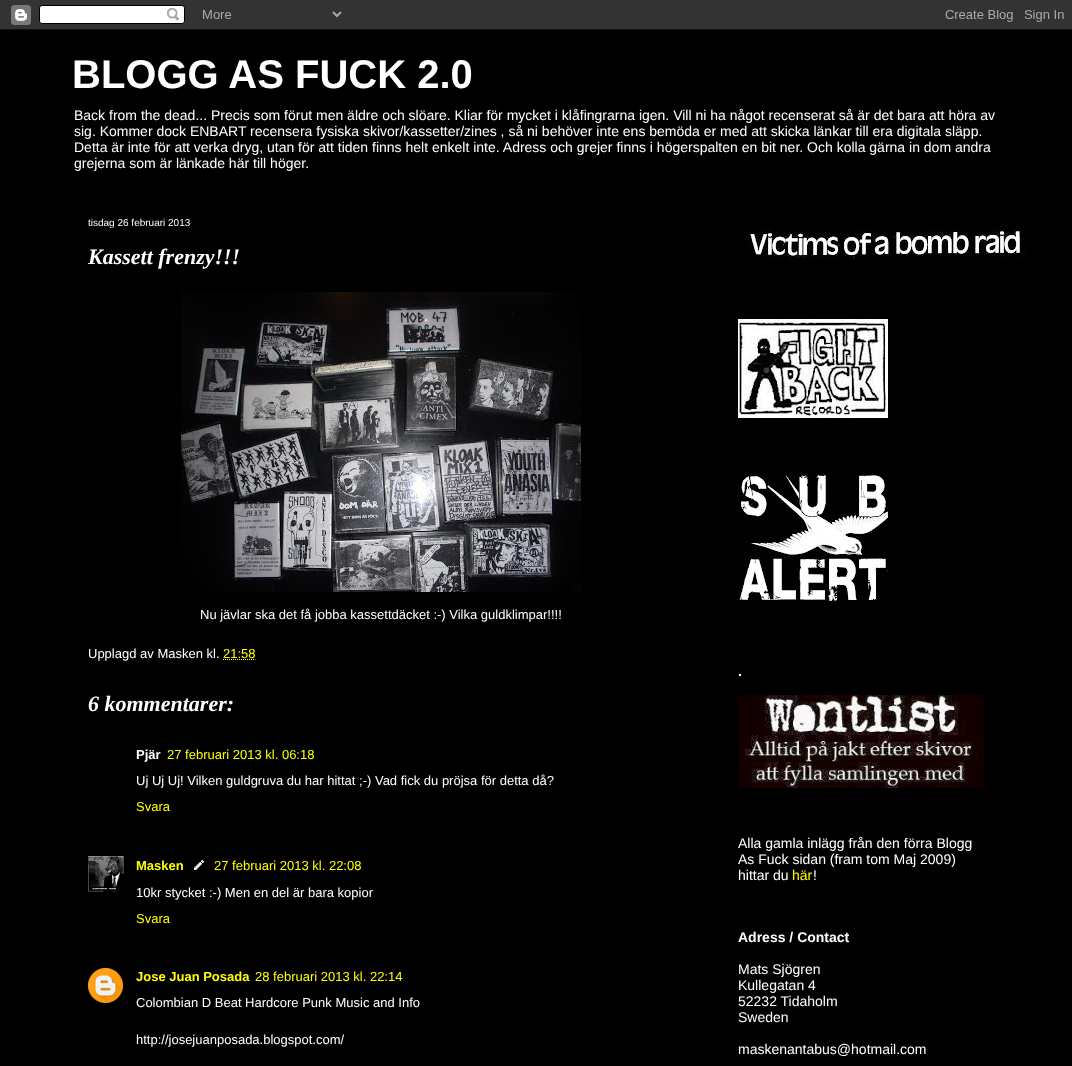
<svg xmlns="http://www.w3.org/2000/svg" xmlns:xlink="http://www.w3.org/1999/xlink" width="1072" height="1066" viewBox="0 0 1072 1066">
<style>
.cls-1{font:bold 40px Liberation Sans;fill:#ffffff}
.cls-2{font:14px Liberation Sans;fill:#ffffff}
.cls-3{font:10px Liberation Sans;fill:#ffffff}
.cls-4{font:italic bold 22px Liberation Serif;fill:#ffffff}
.cls-5{font:13px Liberation Sans;fill:#ffffff}
.cls-6{font:13px Liberation Sans;fill:#ffff00}
.cls-7{font:bold 13px Liberation Sans;fill:#ffffff}
.cls-8{font:bold 13px Liberation Sans;fill:#ffff00}
.cls-9{font:bold 14px Liberation Sans;fill:#ffffff}
.cls-10{font:14px Liberation Sans;fill:#ffff00}
</style>
<rect width="100%" height="100%" fill="#000000"/>
<image xlink:href="image0.png" x="0" y="0" width="1072" height="30"/>
<image xlink:href="image1.png" x="181" y="292" width="400" height="300"/>
<path fill="none" stroke="#ffff00" stroke-dasharray="1 1" d="M223 659.5H255.5"/>
<image xlink:href="image2.png" x="88" y="856" width="36" height="36"/>
<image xlink:href="image3.png" x="194" y="860" width="10" height="10"/>
<image xlink:href="image4.png" x="88" y="968" width="35" height="35"/>
<image xlink:href="image5.png" x="746" y="227" width="280" height="32"/>
<image xlink:href="image6.png" x="738" y="319" width="150" height="99"/>
<image xlink:href="image7.png" x="738" y="474" width="150" height="127"/>
<image xlink:href="image8.png" x="738" y="695" width="246" height="93"/>
<text class="cls-1" x="72" y="88">BLOGG AS FUCK 2.0</text>
<text class="cls-2"><tspan x="74" y="120">Back from the dead... Precis som förut men äldre och slöare. Kliar för mycket i klåfingrarna igen. Vill ni ha något recenserat så är det bara att höra av</tspan><tspan x="74" y="136">sig. Kommer dock ENBART recensera fysiska skivor/kassetter/zines , så ni behöver inte ens bemöda er med att skicka länkar till era digitala släpp.</tspan><tspan x="74" y="152">Detta är inte för att verka dryg, utan för att tiden finns helt enkelt inte. Adress och grejer finns i högerspalten en bit ner. Och kolla gärna in dom andra</tspan><tspan x="74" y="168">grejerna som är länkade här till höger.</tspan></text>
<text class="cls-3" x="88" y="226">tisdag 26 februari 2013</text>
<text class="cls-4" x="88" y="264">Kassett frenzy!!!</text>
<text class="cls-5" x="200" y="619">Nu jävlar ska det få jobba kassettdäcket :-) Vilka guldklimpar!!!!</text>
<text class="cls-5" x="88" y="658">Upplagd av Masken kl.</text>
<text class="cls-6" x="223" y="658">21:58</text>
<text class="cls-4" x="88" y="711">6 kommentarer:</text>
<text class="cls-7" x="136" y="759">Pjär</text>
<text class="cls-6" x="167" y="759">27 februari 2013 kl. 06:18</text>
<text class="cls-5" x="136" y="785">Uj Uj Uj! Vilken guldgruva du har hittat ;-) Vad fick du pröjsa för detta då?</text>
<text class="cls-6" x="136" y="811">Svara</text>
<text class="cls-8" x="136" y="870">Masken</text>
<text class="cls-6" x="214" y="870">27 februari 2013 kl. 22:08</text>
<text class="cls-5" x="136" y="897">10kr stycket :-) Men en del är bara kopior</text>
<text class="cls-6" x="136" y="923">Svara</text>
<text class="cls-8" x="136" y="981">Jose Juan Posada</text>
<text class="cls-6" x="255" y="981">28 februari 2013 kl. 22:14</text>
<text class="cls-5" x="136" y="1007">Colombian D Beat Hardcore Punk Music and Info</text>
<text class="cls-5" x="136" y="1044">http://josejuanposada.blogspot.com/</text>
<text class="cls-9" x="738" y="676">.</text>
<text class="cls-2"><tspan x="738" y="848">Alla gamla inlägg från den förra Blogg</tspan><tspan x="738" y="864">As Fuck sidan (fram tom Maj 2009)</tspan><tspan x="738" y="880">hittar du</tspan></text>
<text class="cls-10" x="792" y="880">här</text>
<text class="cls-2" x="813" y="880">!</text>
<text class="cls-9" x="738" y="942">Adress / Contact</text>
<text class="cls-2"><tspan x="738" y="974">Mats Sjögren</tspan><tspan x="738" y="990">Kullegatan 4</tspan><tspan x="738" y="1006">52232 Tidaholm</tspan><tspan x="738" y="1022">Sweden</tspan></text>
<text class="cls-2" x="738" y="1054">maskenantabus@hotmail.com</text>
</svg>
